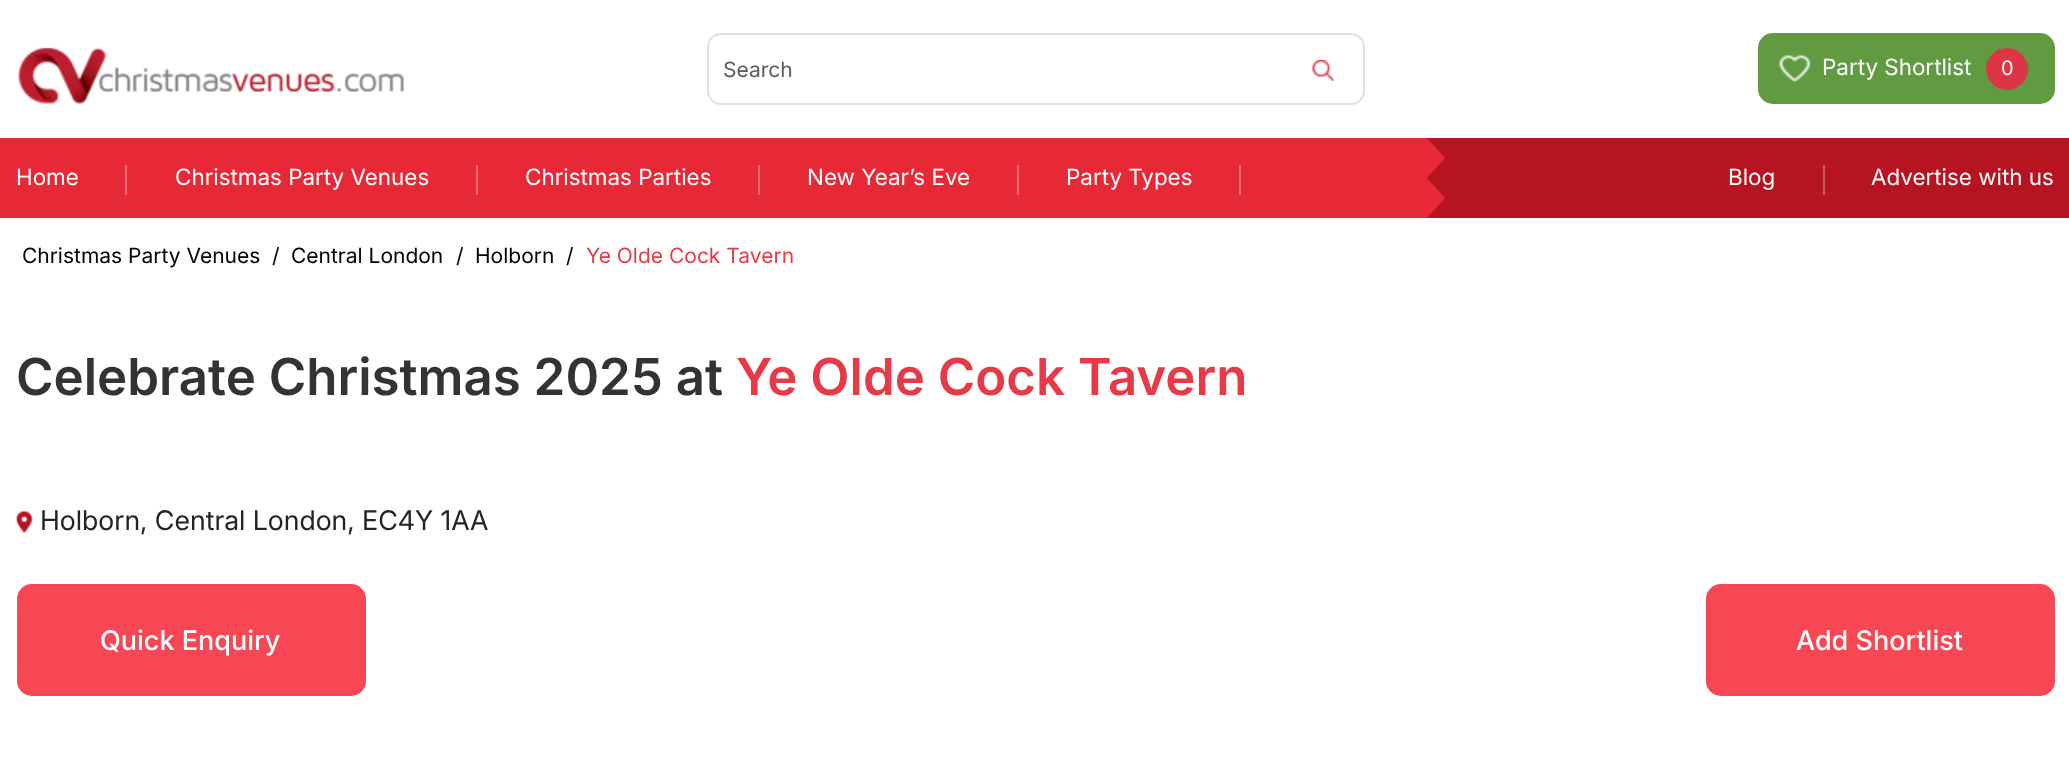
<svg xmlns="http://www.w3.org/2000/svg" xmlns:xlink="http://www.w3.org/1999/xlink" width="2069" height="769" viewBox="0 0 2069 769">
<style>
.cls-1{font:21px 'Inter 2';fill:#595c5f}
.cls-2{font:22.5px Inter;fill:#ffffff}
.cls-3{font:20px 'Inter 2';fill:#ffffff}
.cls-4{font:21px 'Inter 2';fill:#000000}
.cls-5{font:21px 'Inter 2';fill:#e63a47}
.cls-6{font:600 51px Inter;fill:#333333}
.cls-7{font:600 51px Inter;fill:#e63a47}
.cls-8{font:27px 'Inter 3';fill:#212529}
.cls-9{font:500 27px Inter;fill:#ffffff}
</style>
<rect width="100%" height="100%" fill="#ffffff"/>
<image xlink:href="image0.png" x="17" y="47" width="387" height="58"/>
<rect fill="none" stroke="#dee2e6" stroke-width="2" x="708" y="34" width="656" height="70" rx="13"/>
<image xlink:href="image1.png" x="1312" y="60" width="22" height="21"/>
<rect fill="#609b41" x="1758" y="33" width="297" height="71" rx="15"/>
<image xlink:href="image2.png" x="1778" y="54" width="33" height="28"/>
<circle fill="#dc3545" cx="2007" cy="69" r="21"/>
<rect fill="#e62837" x="0" y="138" width="1445" height="80"/>
<path fill="#b51420" d="M1491 138H1427L1445 158L1427 178L1445 198L1427 218H1491Z"/>
<rect fill="#b51420" x="1491" y="138" width="578" height="80"/>
<rect fill="#ee6973" x="125" y="165" width="2" height="30"/>
<rect fill="#ee6973" x="476" y="165" width="2" height="30"/>
<rect fill="#ee6973" x="758" y="165" width="2" height="30"/>
<rect fill="#ee6973" x="1017" y="165" width="2" height="30"/>
<rect fill="#ee6973" x="1239" y="165" width="2" height="30"/>
<rect fill="#cb5b63" x="1823" y="165" width="2" height="30"/>
<image xlink:href="image3.png" x="16" y="511" width="17" height="22"/>
<rect fill="#f74754" x="17" y="584" width="349" height="112" rx="15"/>
<rect fill="#f74754" x="1706" y="584" width="349" height="112" rx="15"/>
<text class="cls-1" x="723" y="77">Search</text>
<text class="cls-2" x="1822" y="75">Party Shortlist</text>
<text class="cls-3" x="2001" y="75">0</text>
<text class="cls-2" x="16" y="185">Home</text>
<text class="cls-2" x="175" y="185">Christmas Party Venues</text>
<text class="cls-2" x="525" y="185">Christmas Parties</text>
<text class="cls-2" x="807" y="185">New Year’s Eve</text>
<text class="cls-2" x="1066" y="185">Party Types</text>
<text class="cls-2" x="1728" y="185">Blog</text>
<text class="cls-2" x="1871" y="185">Advertise with us</text>
<text class="cls-4" x="22" y="263">Christmas Party Venues</text>
<text class="cls-4" x="272" y="263">/</text>
<text class="cls-4" x="291" y="263">Central London</text>
<text class="cls-4" x="456" y="263">/</text>
<text class="cls-4" x="475" y="263">Holborn</text>
<text class="cls-4" x="566" y="263">/</text>
<text class="cls-5" x="586" y="263">Ye Olde Cock Tavern</text>
<text class="cls-6" x="16" y="395">Celebrate Christmas 2025 at</text>
<text class="cls-7" x="736" y="395">Ye Olde Cock Tavern</text>
<text class="cls-8" x="40" y="530">Holborn, Central London, EC4Y 1AA</text>
<text class="cls-9" x="100" y="650">Quick Enquiry</text>
<text class="cls-9" x="1796" y="650">Add Shortlist</text>
</svg>
